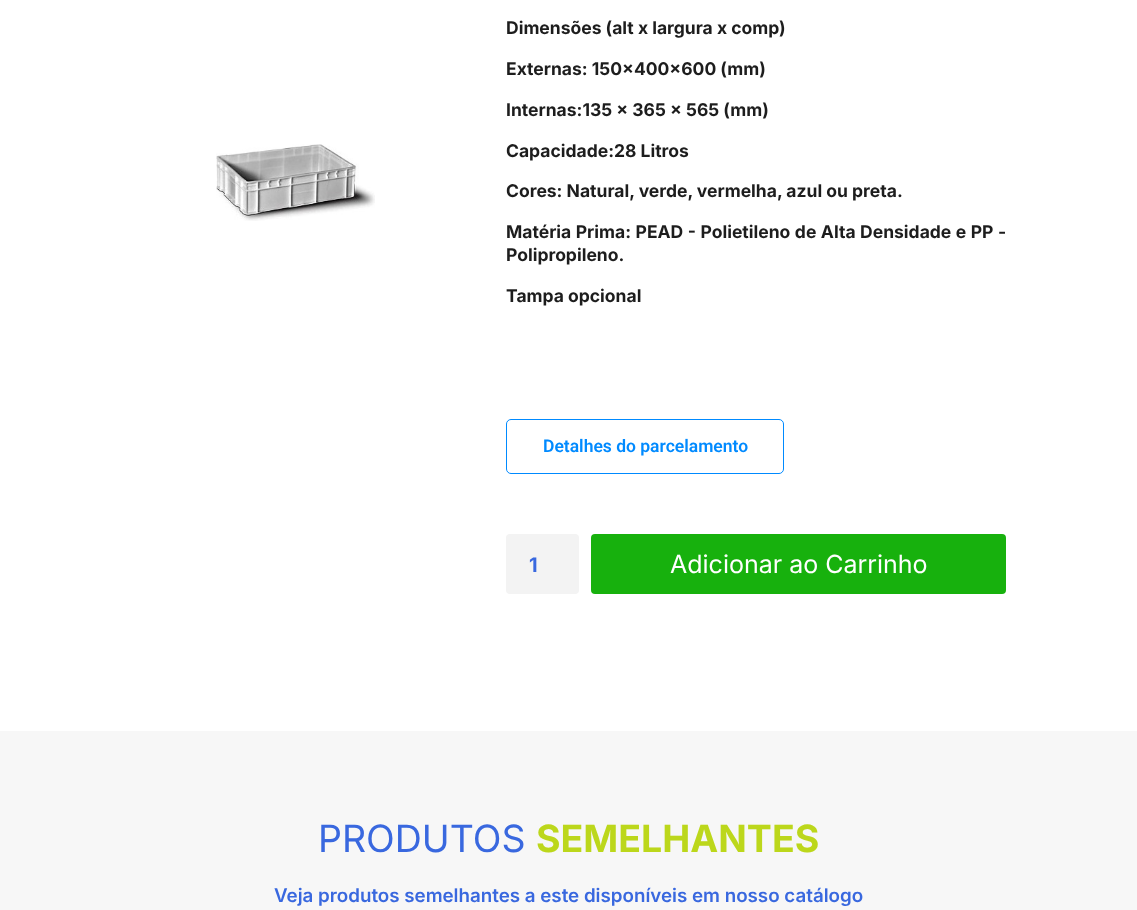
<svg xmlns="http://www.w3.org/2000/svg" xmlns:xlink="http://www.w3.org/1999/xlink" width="1137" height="910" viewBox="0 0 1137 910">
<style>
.cls-1{font:bold 17.5px Inter;fill:#1d1d1d}
.cls-2{font:600 17.5px Roboto;fill:#008aff}
.cls-3{font:bold 20px Inter;fill:#3968df}
.cls-4{font:25px Inter;fill:#ffffff}
.cls-5{font:37.5px Inter;fill:#3968df}
.cls-6{font:bold 37.5px Inter;fill:#bcd71b}
.cls-7{font:600 18.75px Inter;fill:#3968df}
</style>
<rect width="100%" height="100%" fill="#ffffff"/>
<image xlink:href="image0.png" x="216" y="144" width="159" height="77"/>
<rect fill="none" stroke="#008aff" x="506.5" y="419.5" width="277" height="54" rx="4.5"/>
<rect fill="#f3f3f3" x="506" y="534" width="73" height="60" rx="4"/>
<rect fill="#17b10d" x="591" y="534" width="415" height="60" rx="4"/>
<rect fill="#f7f7f7" x="0" y="731" width="1137" height="179"/>
<text class="cls-1" x="506" y="34">Dimensões (alt x largura x comp)</text>
<text class="cls-1" x="506" y="75">Externas: 150x400x600 (mm)</text>
<text class="cls-1" x="506" y="116">Internas:135 x 365 x 565 (mm)</text>
<text class="cls-1" x="506" y="157">Capacidade:28 Litros</text>
<text class="cls-1" x="506" y="197">Cores: Natural, verde, vermelha, azul ou preta.</text>
<text class="cls-1"><tspan x="506" y="238" word-spacing="0.4">Matéria Prima: PEAD - Polietileno de Alta Densidade e PP -</tspan><tspan x="506" y="261">Polipropileno.</tspan></text>
<text class="cls-1" x="506" y="302">Tampa opcional</text>
<text class="cls-2" x="543" y="452">Detalhes do parcelamento</text>
<text class="cls-3" x="529" y="572">1</text>
<text class="cls-4" x="670" y="573">Adicionar ao Carrinho</text>
<text class="cls-5" x="318" y="852">PRODUTOS</text>
<text class="cls-6" x="536" y="852">SEMELHANTES</text>
<text class="cls-7" x="274" y="902">Veja produtos semelhantes a este disponíveis em nosso catálogo</text>
</svg>
